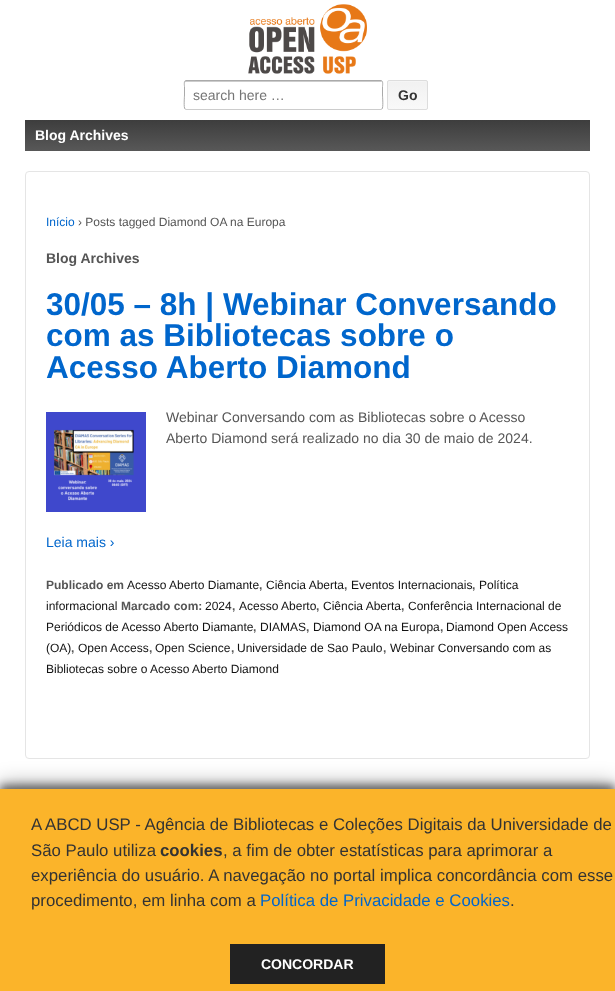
<svg xmlns="http://www.w3.org/2000/svg" xmlns:xlink="http://www.w3.org/1999/xlink" width="615" height="991" viewBox="0 0 615 991">
<style>
.cls-1{font:14px Liberation Sans;fill:#757575}
.cls-2{font:bold 14px Liberation Sans;fill:#333333}
.cls-3{font:bold 14px Liberation Sans;fill:#ffffff}
.cls-4{font:12px Liberation Sans;fill:#0066cc}
.cls-5{font:12px Liberation Sans;fill:#555555}
.cls-6{font:bold 14px Liberation Sans;fill:#555555}
.cls-7{font:bold 31.5px Liberation Sans;fill:#0066cc}
.cls-8{font:14px Liberation Sans;fill:#555555}
.cls-9{font:14px Liberation Sans;fill:#0066cc}
.cls-10{font:bold 12px Liberation Sans;fill:#555555}
.cls-11{font:12px Liberation Sans;fill:#111111}
.cls-12{font:16.8px Liberation Sans;fill:#333333}
.cls-13{font:bold 16.8px Liberation Sans;fill:#333333}
.cls-14{font:16.8px Liberation Sans;fill:#0066cc}
</style>
<defs>
<clipPath id="clip1"><rect x="387" y="80" width="41" height="30" rx="2"/></clipPath>
<linearGradient id="g1" gradientUnits="userSpaceOnUse" x1="408" y1="109" x2="408" y2="81"><stop offset="0" stop-color="#f9f9f9"/><stop offset="1" stop-color="#f1f1f1"/></linearGradient>
<linearGradient id="g2" gradientUnits="userSpaceOnUse" x1="308" y1="151" x2="308" y2="120"><stop offset="0" stop-color="#585858"/><stop offset="1" stop-color="#3d3d3d"/></linearGradient>
</defs>
<rect width="100%" height="100%" fill="#ffffff"/>
<image xlink:href="image0.png" x="248" y="4" width="119" height="70"/>
<path fill="#cccccc" d="M186 82H382V83C382 82 382 81 381 81H185V83C185 82 185 82 186 82Z"/>
<path fill="none" stroke="#cccccc" d="M382 109L381 109.5H186L185 109"/>
<path fill="none" stroke="#aaaaaa" d="M185 109C183.5 107.5 184.5 97 184.5 95V86.5C184.5 86 183.5 80.5 186 80.5H381C383.5 80.5 382.5 86 382.5 86.5V95C382.5 97 383.5 107.5 382 109"/>
<g clip-path="url(#clip1)">
<rect fill="url(#g1)" x="387" y="81" width="41" height="28"/>
</g>
<path fill="#f5f5f5" d="M389 82H421.5C423 82 427 81 427 83C427 79.5 423 81 420 81H395C391.5 81 388 79.5 388 83Z"/>
<rect fill="none" stroke="#dddddd" x="387.5" y="80.5" width="40" height="29" rx="1.5"/>
<rect fill="url(#g2)" x="25" y="120" width="565" height="31"/>
<rect fill="none" stroke="#e5e5e5" x="25.5" y="171.5" width="564" height="587" rx="3.5"/>
<image xlink:href="image1.png" x="46" y="412" width="100" height="100"/>
<rect fill="#000000" fill-opacity="0.3" filter="blur(10px)" x="0" y="783" width="615" height="202"/>
<rect fill="#000000" fill-opacity="0.5" filter="blur(4px)" x="0" y="785" width="615" height="202"/>
<rect fill="#fbb42a" x="0" y="789" width="615" height="202"/>
<rect fill="#222222" x="230" y="944" width="155" height="40"/>
<text class="cls-1" x="193" y="100">search here …</text>
<text class="cls-2" x="398" y="100">Go</text>
<text class="cls-3" x="35" y="140">Blog Archives</text>
<text class="cls-4" x="46" y="226">Início</text>
<text class="cls-5" x="78" y="226">› Posts tagged Diamond OA na Europa</text>
<text class="cls-6" x="46" y="263">Blog Archives</text>
<text class="cls-7"><tspan x="46" y="315">30/05 – 8h | Webinar Conversando</tspan><tspan x="46" y="346">com as Bibliotecas sobre o</tspan><tspan x="46" y="378">Acesso Aberto Diamond</tspan></text>
<text class="cls-8"><tspan x="166" y="422">Webinar Conversando com as Bibliotecas sobre o Acesso</tspan><tspan x="166" y="443">Aberto Diamond será realizado no dia 30 de maio de 2024.</tspan></text>
<text class="cls-9" x="46" y="547">Leia mais ›</text>
<text class="cls-10" x="46" y="589">Publicado em</text>
<text class="cls-11" x="127" y="589">Acesso Aberto Diamante</text>
<text class="cls-10" x="259" y="589">,</text>
<text class="cls-11" x="266" y="589">Ciência Aberta</text>
<text class="cls-10" x="344" y="589">,</text>
<text class="cls-11" x="351" y="589">Eventos Internacionais</text>
<text class="cls-10" x="472" y="589">,</text>
<text class="cls-11" x="479" y="589">Política</text>
<text class="cls-11" x="46" y="610">informacional</text>
<text class="cls-10" x="121" y="610">Marcado com:</text>
<text class="cls-11" x="205" y="610">2024</text>
<text class="cls-10" x="232" y="610">,</text>
<text class="cls-11" x="239" y="610">Acesso Aberto</text>
<text class="cls-10" x="316" y="610">,</text>
<text class="cls-11" x="323" y="610">Ciência Aberta</text>
<text class="cls-10" x="401" y="610">,</text>
<text class="cls-11" x="408" y="610">Conferência Internacional de</text>
<text class="cls-11" x="46" y="631">Periódicos de Acesso Aberto Diamante</text>
<text class="cls-10" x="253" y="631">,</text>
<text class="cls-11" x="260" y="631">DIAMAS</text>
<text class="cls-10" x="306" y="631">,</text>
<text class="cls-11" x="313" y="631">Diamond OA na Europa</text>
<text class="cls-10" x="440" y="631">,</text>
<text class="cls-11" x="446" y="631">Diamond Open Access</text>
<text class="cls-11" x="46" y="652">(OA)</text>
<text class="cls-10" x="71" y="652">,</text>
<text class="cls-11" x="78" y="652">Open Access</text>
<text class="cls-10" x="149" y="652">,</text>
<text class="cls-11" x="155" y="652">Open Science</text>
<text class="cls-10" x="231" y="652">,</text>
<text class="cls-11" x="237" y="652">Universidade de Sao Paulo</text>
<text class="cls-10" x="383" y="652">,</text>
<text class="cls-11" x="390" y="652">Webinar Conversando com as</text>
<text class="cls-11" x="46" y="673">Bibliotecas sobre o Acesso Aberto Diamond</text>
<text class="cls-12"><tspan x="31" y="830">A ABCD USP - Agência de Bibliotecas e Coleções Digitais da Universidade de</tspan><tspan x="31" y="856">São Paulo utiliza</tspan></text>
<text class="cls-13" x="160" y="856">cookies</text>
<text class="cls-12" x="223" y="856">, a fim de obter estatísticas para aprimorar a</text>
<text class="cls-12"><tspan x="31" y="881">experiência do usuário. A navegação no portal implica concordância com esse</tspan><tspan x="31" y="906">procedimento, em linha com a</tspan></text>
<text class="cls-14" x="260" y="906">Política de Privacidade e Cookies</text>
<text class="cls-12" x="510" y="906">.</text>
<text class="cls-3" x="261" y="969">CONCORDAR</text>
</svg>
